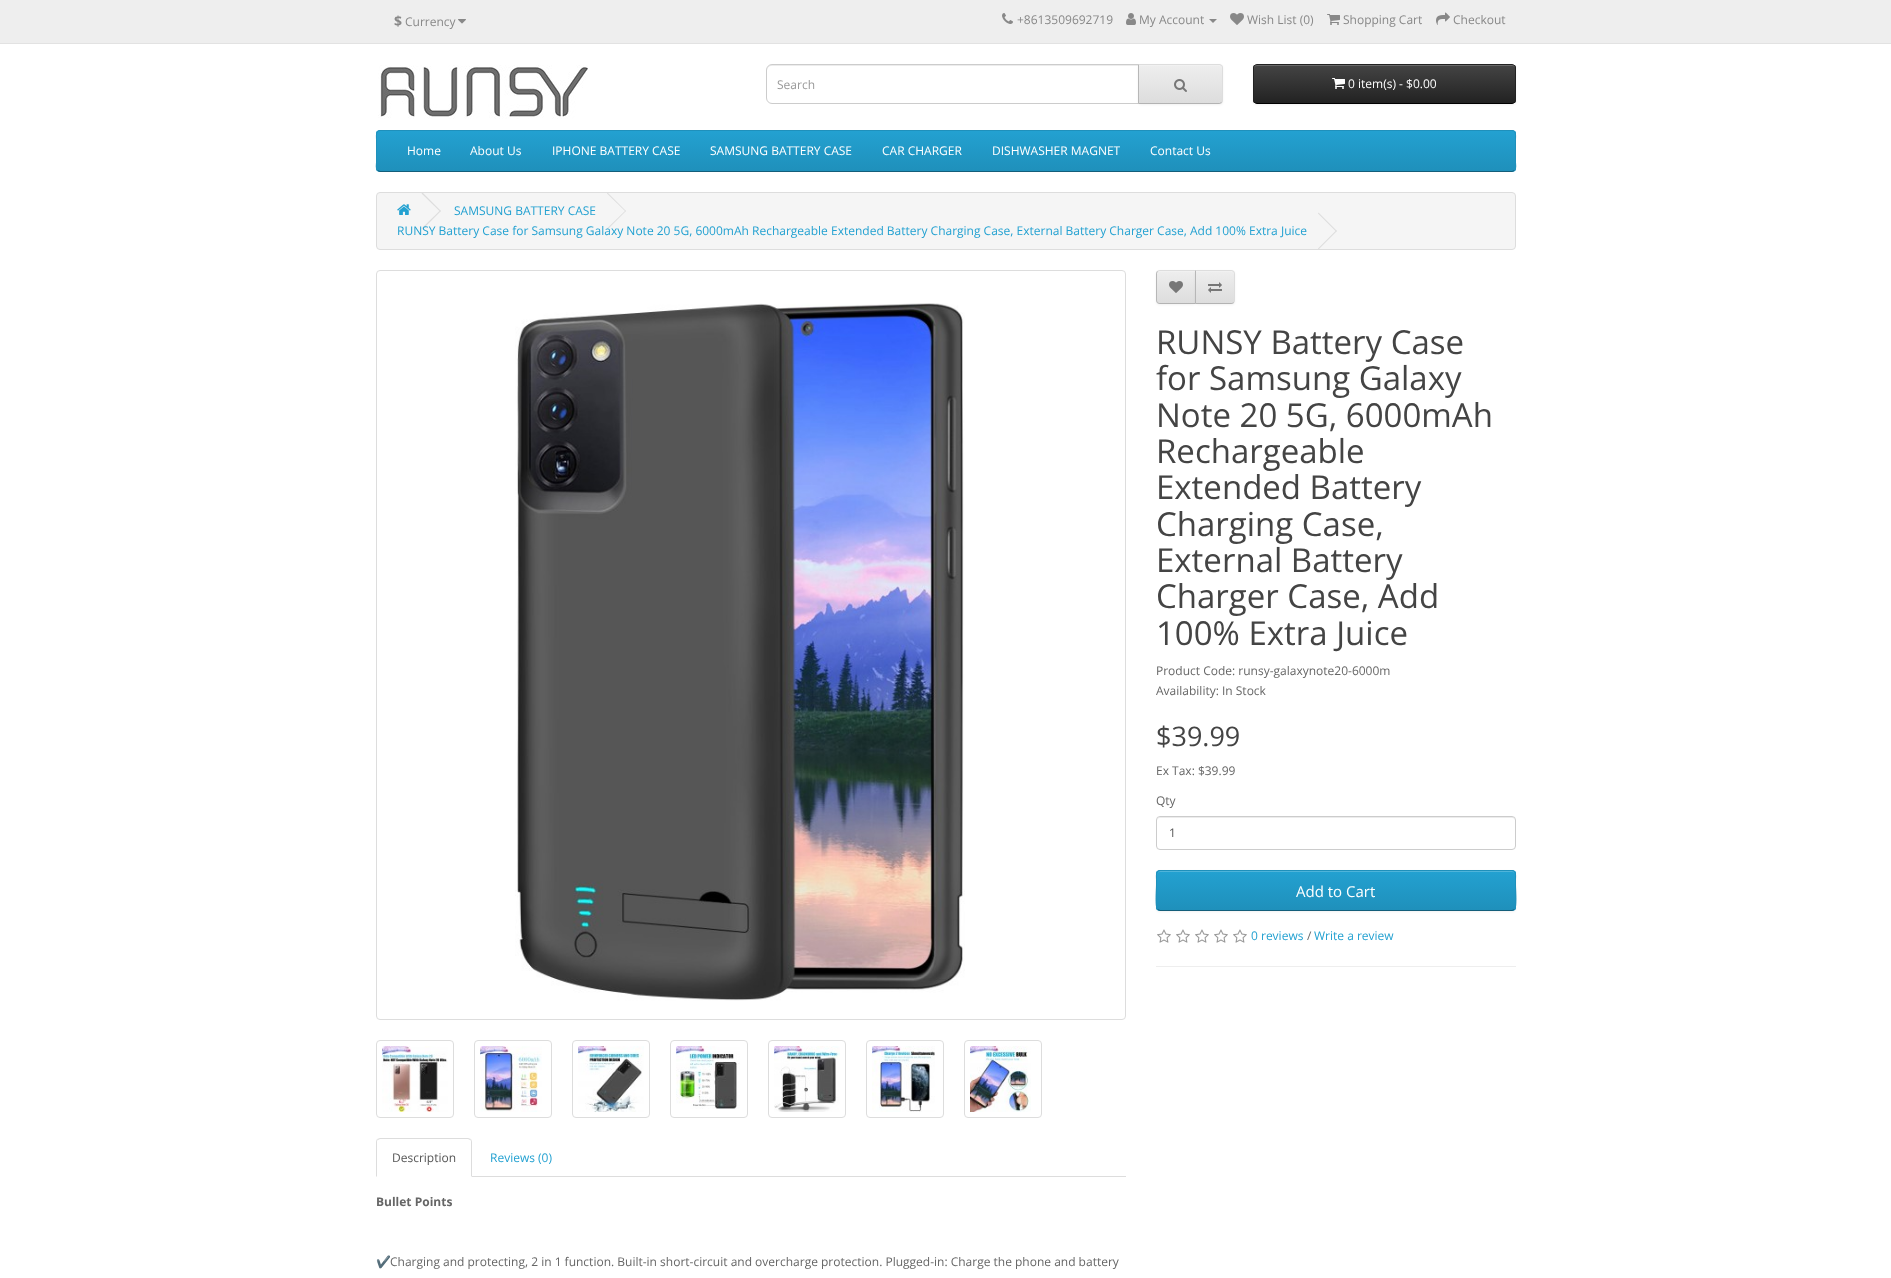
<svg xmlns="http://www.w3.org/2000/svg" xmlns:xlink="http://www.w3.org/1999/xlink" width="1891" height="1278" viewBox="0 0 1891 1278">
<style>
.cls-1{font:bold 14px Open Sans;fill:#888888}
.cls-2{font:12px Open Sans;fill:#888888}
.cls-3{font:12px Open Sans;fill:#999999}
.cls-4{font:12px Open Sans;fill:#ffffff}
.cls-5{font:12px Open Sans;fill:#23a1d1}
.cls-6{font:33px Open Sans;fill:#444444}
.cls-7{font:12px Open Sans;fill:#666666}
.cls-8{font:27px Open Sans;fill:#444444}
.cls-9{font:12px Open Sans;fill:#555555}
.cls-10{font:15px Open Sans;fill:#ffffff}
.cls-11{font:bold 12px Open Sans;fill:#666666}
.cls-12{font:12px Noto Color Emoji;fill:#666666}
</style>
<defs>
<clipPath id="clip1"><path d="M1138 64H1219C1221 64 1223 66 1223 68V100C1223 102 1221 104 1219 104H1138Z"/></clipPath>
<linearGradient id="g1" gradientUnits="userSpaceOnUse" x1="1181" y1="65" x2="1181" y2="103"><stop offset="0" stop-color="#eeeeee"/><stop offset="1" stop-color="#dddddd"/></linearGradient>
<clipPath id="clip2"><rect x="1253" y="64" width="263" height="40" rx="4"/></clipPath>
<linearGradient id="g2" gradientUnits="userSpaceOnUse" x1="1385" y1="65" x2="1385" y2="103"><stop offset="0" stop-color="#444444"/><stop offset="1" stop-color="#222222"/></linearGradient>
<clipPath id="clip3"><rect x="376" y="130" width="1140" height="42" rx="4"/></clipPath>
<linearGradient id="g3" gradientUnits="userSpaceOnUse" x1="946" y1="131" x2="946" y2="171"><stop offset="0" stop-color="#23a1d1"/><stop offset="1" stop-color="#1f90bb"/></linearGradient>
<clipPath id="clip4"><path d="M1160 270H1196V304H1160C1158 304 1156 302 1156 300V274C1156 272 1158 270 1160 270Z"/></clipPath>
<linearGradient id="g4" gradientUnits="userSpaceOnUse" x1="1176" y1="271" x2="1176" y2="303"><stop offset="0" stop-color="#eeeeee"/><stop offset="1" stop-color="#dddddd"/></linearGradient>
<clipPath id="clip5"><path d="M1195 270H1231C1233 270 1235 272 1235 274V300C1235 302 1233 304 1231 304H1195Z"/></clipPath>
<linearGradient id="g5" gradientUnits="userSpaceOnUse" x1="1215" y1="271" x2="1215" y2="303"><stop offset="0" stop-color="#eeeeee"/><stop offset="1" stop-color="#dddddd"/></linearGradient>
<clipPath id="clip6"><rect x="1156" y="870" width="360" height="41" rx="4"/></clipPath>
<linearGradient id="g6" gradientUnits="userSpaceOnUse" x1="1336" y1="871" x2="1336" y2="910"><stop offset="0" stop-color="#23a1d1"/><stop offset="1" stop-color="#1f90bb"/></linearGradient>
</defs>
<rect width="100%" height="100%" fill="#ffffff"/>
<rect fill="#eeeeee" x="0" y="0" width="1891" height="43"/>
<rect fill="#e2e2e2" x="0" y="43" width="1891" height="1"/>
<image xlink:href="image0.png" x="458" y="19" width="8" height="5"/>
<image xlink:href="image1.png" x="1002" y="13" width="11" height="11"/>
<image xlink:href="image2.png" x="1126" y="13" width="10" height="12"/>
<path fill="#888888" d="M1209 19H1217L1213 23Z"/>
<image xlink:href="image3.png" x="1230" y="13" width="14" height="12"/>
<image xlink:href="image4.png" x="1327" y="14" width="13" height="11"/>
<image xlink:href="image5.png" x="1436" y="12" width="14" height="13"/>
<image xlink:href="image6.png" x="378" y="65" width="210" height="54"/>
<path fill="#ececec" d="M772 66H1138V65H772C769 65 767 67 767 70V71C767 68 769 66 772 66Z"/>
<path fill="none" stroke="#cccccc" d="M772 64.5H1138.5V103.5H772C769 103.5 766.5 101 766.5 98V70C766.5 67 769 64.5 772 64.5Z"/>
<rect fill="#000000" fill-opacity="0.05" filter="blur(1px)" x="1138" y="65" width="85" height="40" rx="4"/>
<path fill="#e7e7e7" d="M1138 64H1219C1221 64 1223 66 1223 68V100C1223 102 1221 104 1219 104H1138Z"/>
<g clip-path="url(#clip1)">
<rect fill="url(#g1)" x="1139" y="65" width="84" height="38"/>
</g>
<path fill="#f1f1f1" d="M1139 66H1219C1221 66 1222 67 1222 69V68C1222 66 1221 65 1219 65H1139Z"/>
<path fill="#dddddd" d="M1138 64L1139 65H1220L1221 66L1222 65L1219 64Z"/>
<path fill="#dddddd" d="M1223 100V68C1223 67 1222.5 66 1222 65L1221 66C1222 66 1222 67 1222 68V100C1222 101 1222 102 1221 102L1222 103C1222.5 102 1223 101 1223 100Z"/>
<path fill="#b3b3b3" d="M1219 104L1222 103L1221 102L1220 103H1139L1138 104Z"/>
<path fill="#b7b7b7" d="M1138 64V104L1139 103V65Z"/>
<image xlink:href="image7.png" x="1174" y="79" width="13" height="13"/>
<rect fill="#000000" fill-opacity="0.05" filter="blur(1px)" x="1253" y="65" width="263" height="40" rx="4"/>
<g clip-path="url(#clip2)">
<rect fill="url(#g2)" x="1253" y="65" width="263" height="38"/>
</g>
<path fill="#696969" d="M1257 66H1513L1515 67V69V68C1515 66 1514 65 1512 65H1257C1255 65 1254 66 1254 68V69C1254 67 1255 66 1257 66Z"/>
<path fill="none" stroke="#000000" d="M1514.5 102.5C1514 103 1513 103.5 1512 103.5H1257C1256 103.5 1255 103 1254.5 102.5"/>
<path fill="none" stroke="#222222" d="M1254.5 102.5C1254 102 1253.5 101 1253.5 100V68C1253.5 67 1254 66 1254.5 65.5C1255 65 1256 64.5 1257 64.5H1512C1513 64.5 1514 65 1514.5 65.5C1515 66 1515.5 67 1515.5 68V100C1515.5 101 1515 102 1514.5 102.5"/>
<image xlink:href="image8.png" x="1332" y="78" width="13" height="11"/>
<rect fill="#229ac8" x="376" y="130" width="1140" height="42" rx="4"/>
<g clip-path="url(#clip3)">
<rect fill="url(#g3)" x="376" y="131" width="1140" height="40"/>
</g>
<path fill="none" stroke="#145e7a" d="M1514.5 170.5L1512 171.5H380L377.5 170.5"/>
<path fill="none" stroke="#1f90bb" d="M377.5 170.5C375.5 168.5 376.5 164 376.5 162.5V139.5C376.5 137 375.5 130.5 380 130.5H1512C1516.5 130.5 1515.5 137 1515.5 139.5V162.5C1515.5 164 1516.5 168.5 1514.5 170.5"/>
<rect fill="#f5f5f5" stroke="#dddddd" x="376.5" y="192.5" width="1139" height="57" rx="3.5"/>
<image xlink:href="image9.png" x="397" y="204" width="14" height="11"/>
<path fill="#dddddd" d="M421.5 193.5L422.5 192.5L441 211L440 211.5Z"/>
<path fill="#dddddd" d="M421.5 228.5L440 210.5L441 211L422.5 229.5Z"/>
<path fill="#dddddd" d="M607 193.5L607.5 192.5L626 211L625.5 211.5Z"/>
<path fill="#dddddd" d="M607 228.5L625.5 210.5L626 211L607.5 229.5Z"/>
<path fill="#dddddd" d="M1318 213.5L1318.5 212.5L1337 231L1336 231.5Z"/>
<path fill="#dddddd" d="M1318 248.5L1336 230.5L1337 231L1318.5 249.5Z"/>
<rect fill="#000000" fill-opacity="0.05" filter="blur(1px)" x="1156" y="271" width="40" height="34" rx="4"/>
<g clip-path="url(#clip4)">
<rect fill="url(#g4)" x="1156" y="271" width="39" height="32"/>
</g>
<path fill="#f1f1f1" d="M1160 272H1195V271H1160C1158.5 271 1157 272.5 1157 274V275C1157 273 1158 272 1160 272Z"/>
<path fill="#dddddd" d="M1160 270C1159 270 1158 270.5 1157 271L1158 272C1158 271 1159 271 1160 271H1195L1196 270Z"/>
<path fill="#b3b3b3" d="M1196 304L1195 303H1160C1159 303 1158 303 1158 302L1157 303C1158 303.5 1159 304 1160 304Z"/>
<path fill="#b7b7b7" d="M1156 274V300C1156 301 1156.5 302 1157 303L1158 302C1157 302 1157 301 1157 300V274C1157 273 1157 272 1158 272L1157 271C1156.5 272 1156 273 1156 274Z"/>
<image xlink:href="image10.png" x="1169" y="281" width="14" height="12"/>
<rect fill="#000000" fill-opacity="0.05" filter="blur(1px)" x="1195" y="271" width="40" height="34" rx="4"/>
<g clip-path="url(#clip5)">
<rect fill="url(#g5)" x="1196" y="271" width="39" height="32"/>
</g>
<path fill="#f1f1f1" d="M1196 272H1231C1233 272 1234 273 1234 275V274C1234 272.5 1232.5 271 1231 271H1196Z"/>
<path fill="#dddddd" d="M1195 270L1196 271H1231C1232 271 1233 271 1233 272L1234 271C1233 270.5 1232 270 1231 270Z"/>
<path fill="#dddddd" d="M1235 300V274C1235 273 1234.5 272 1234 271L1233 272C1234 272 1234 273 1234 274V300C1234 301 1234 302 1233 302L1234 303C1234.5 302 1235 301 1235 300Z"/>
<path fill="#b3b3b3" d="M1231 304C1232 304 1233 303.5 1234 303L1233 302C1233 303 1232 303 1231 303H1196L1195 304Z"/>
<path fill="#b7b7b7" d="M1195 270V304L1196 303V271Z"/>
<image xlink:href="image11.png" x="1208" y="282" width="14" height="11"/>
<path fill="#ececec" d="M1160 818H1512C1514 818 1515 819 1515 821C1515 819 1514 817 1512 817H1160L1158 818L1157 821C1157 819 1158 818 1160 818Z"/>
<rect fill="none" stroke="#cccccc" x="1156.5" y="816.5" width="359" height="33" rx="3.5"/>
<rect fill="#000000" fill-opacity="0.05" filter="blur(1px)" x="1156" y="871" width="360" height="41" rx="4"/>
<rect fill="#229ac8" x="1156" y="870" width="360" height="41" rx="4"/>
<g clip-path="url(#clip6)">
<rect fill="url(#g6)" x="1156" y="871" width="360" height="39"/>
</g>
<path fill="#4fb4da" d="M1160 872H1512C1514 872 1515 873 1515 875C1515 873 1514 871 1512 871H1160L1158 872L1157 875C1157 873 1158 872 1160 872Z"/>
<path fill="none" stroke="#145e7a" d="M1514.5 909.5L1512 910.5H1160L1157.5 909.5"/>
<path fill="none" stroke="#1f90bb" d="M1157.5 909.5C1155 907 1156.5 889 1156.5 885V879.5C1156.5 877 1155.5 870.5 1160 870.5H1512C1516.5 870.5 1515.5 877 1515.5 879.5V885C1515.5 889 1517 907 1514.5 909.5"/>
<image xlink:href="image12.png" x="1157" y="929" width="14" height="14"/>
<image xlink:href="image12.png" x="1176" y="929" width="14" height="14"/>
<image xlink:href="image12.png" x="1195" y="929" width="14" height="14"/>
<image xlink:href="image12.png" x="1214" y="929" width="14" height="14"/>
<image xlink:href="image12.png" x="1233" y="929" width="14" height="14"/>
<rect fill="#eeeeee" x="1156" y="966" width="360" height="1"/>
<rect fill="none" stroke="#dddddd" x="376.5" y="270.5" width="749" height="749" rx="3.5"/>
<image xlink:href="image13.png" x="515" y="303" width="450" height="698"/>
<rect fill="none" stroke="#dddddd" x="376.5" y="1040.5" width="77" height="77" rx="3.5"/>
<image xlink:href="image14.png" x="382" y="1046" width="66" height="66"/>
<rect fill="none" stroke="#dddddd" x="474.5" y="1040.5" width="77" height="77" rx="3.5"/>
<image xlink:href="image15.png" x="480" y="1046" width="62" height="66"/>
<rect fill="none" stroke="#dddddd" x="572.5" y="1040.5" width="77" height="77" rx="3.5"/>
<image xlink:href="image16.png" x="578" y="1046" width="66" height="66"/>
<rect fill="none" stroke="#dddddd" x="670.5" y="1040.5" width="77" height="77" rx="3.5"/>
<image xlink:href="image17.png" x="676" y="1046" width="64" height="63"/>
<rect fill="none" stroke="#dddddd" x="768.5" y="1040.5" width="77" height="77" rx="3.5"/>
<image xlink:href="image18.png" x="774" y="1046" width="66" height="66"/>
<rect fill="none" stroke="#dddddd" x="866.5" y="1040.5" width="77" height="77" rx="3.5"/>
<image xlink:href="image19.png" x="872" y="1046" width="63" height="66"/>
<rect fill="none" stroke="#dddddd" x="964.5" y="1040.5" width="77" height="77" rx="3.5"/>
<image xlink:href="image20.png" x="970" y="1046" width="61" height="66"/>
<rect fill="#dddddd" x="472" y="1176" width="654" height="1"/>
<path fill="#dddddd" d="M380 1138L377 1139L378 1140L380 1139H468L470 1140L471 1139L468 1138Z"/>
<path fill="#dddddd" d="M472 1177V1142C472 1141 471.5 1140 471 1139L470 1140C471 1140 471 1141 471 1142V1176Z"/>
<path fill="#dddddd" d="M376 1177L377 1176V1142C377 1141 377 1140 378 1140L377 1139C376.5 1140 376 1141 376 1142Z"/>
<text class="cls-1" x="394" y="26">$</text>
<text class="cls-2" x="405" y="26">Currency</text>
<text class="cls-2" x="1017" y="24">+8613509692719</text>
<text class="cls-2" x="1139" y="24">My Account</text>
<text class="cls-2" x="1247" y="24">Wish List (0)</text>
<text class="cls-2" x="1343" y="24">Shopping Cart</text>
<text class="cls-2" x="1453" y="24">Checkout</text>
<text class="cls-3" x="777" y="89">Search</text>
<text class="cls-4" x="1348" y="88">0 item(s) - $0.00</text>
<text class="cls-4" x="407" y="155">Home</text>
<text class="cls-4" x="470" y="155">About Us</text>
<text class="cls-4" x="552" y="155">IPHONE BATTERY CASE</text>
<text class="cls-4" x="710" y="155">SAMSUNG BATTERY CASE</text>
<text class="cls-4" x="882" y="155">CAR CHARGER</text>
<text class="cls-4" x="992" y="155">DISHWASHER MAGNET</text>
<text class="cls-4" x="1150" y="155">Contact Us</text>
<text class="cls-5" x="454" y="215">SAMSUNG BATTERY CASE</text>
<text class="cls-5" x="397" y="235">RUNSY Battery Case for Samsung Galaxy Note 20 5G, 6000mAh Rechargeable Extended Battery Charging Case, External Battery Charger Case, Add 100% Extra Juice</text>
<text class="cls-6"><tspan x="1156" y="354">RUNSY Battery Case</tspan><tspan x="1156" y="390">for Samsung Galaxy</tspan><tspan x="1156" y="427">Note 20 5G, 6000mAh</tspan><tspan x="1156" y="463">Rechargeable</tspan><tspan x="1156" y="499">Extended Battery</tspan><tspan x="1156" y="536">Charging Case,</tspan><tspan x="1156" y="572">External Battery</tspan><tspan x="1156" y="608">Charger Case, Add</tspan><tspan x="1156" y="645">100% Extra Juice</tspan></text>
<text class="cls-7"><tspan x="1156" y="675">Product Code: runsy-galaxynote20-6000m</tspan><tspan x="1156" y="695">Availability: In Stock</tspan></text>
<text class="cls-8" x="1156" y="746">$39.99</text>
<text class="cls-7" x="1156" y="775">Ex Tax: $39.99</text>
<text class="cls-7" x="1156" y="805">Qty</text>
<text class="cls-9" x="1169" y="837">1</text>
<text class="cls-10" x="1296" y="897">Add to Cart</text>
<text class="cls-5" x="1251" y="940">0 reviews</text>
<text class="cls-7" x="1307" y="940">/</text>
<text class="cls-5" x="1314" y="940">Write a review</text>
<text class="cls-9" x="392" y="1162">Description</text>
<text class="cls-5" x="490" y="1162">Reviews (0)</text>
<text class="cls-11" x="376" y="1206">Bullet Points</text>
<text class="cls-12" x="376" y="1266">✔️</text>
<text class="cls-7" x="390" y="1266">Charging and protecting, 2 in 1 function. Built-in short-circuit and overcharge protection. Plugged-in: Charge the phone and battery</text>
</svg>
